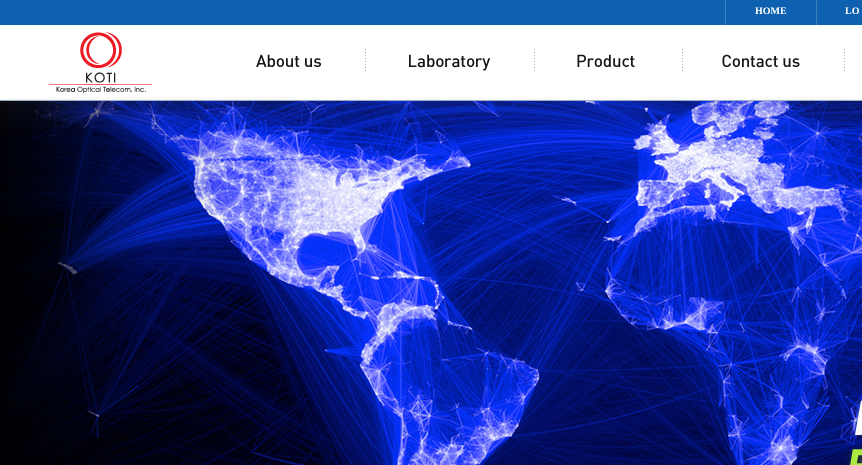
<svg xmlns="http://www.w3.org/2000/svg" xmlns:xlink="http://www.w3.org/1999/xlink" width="862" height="465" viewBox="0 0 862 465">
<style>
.cls-1{font:bold 10px Liberation Serif;fill:#ffffff}
</style>
<rect width="100%" height="100%" fill="#0e61b0"/>
<rect fill="#3e81c0" x="725" y="0" width="1" height="25"/>
<rect fill="#3e81c0" x="816" y="0" width="1" height="25"/>
<rect fill="#ffffff" x="0" y="25" width="862" height="75"/>
<rect fill="#7090af" x="0" y="100" width="862" height="1"/>
<image xlink:href="image0.png" x="48" y="32" width="105" height="61"/>
<image xlink:href="image1.png" x="256" y="49" width="110" height="22"/>
<image xlink:href="image2.png" x="409" y="49" width="126" height="22"/>
<image xlink:href="image3.png" x="577" y="49" width="106" height="22"/>
<image xlink:href="image4.png" x="722" y="49" width="123" height="22"/>
<rect fill="#dfdfdf" filter="blur(2px)" x="0" y="101" width="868" height="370"/>
<image xlink:href="image5.png" x="0" y="101" width="862" height="364"/>
<text class="cls-1" x="755" y="14">HOME</text>
<text class="cls-1" x="845" y="14">LO</text>
</svg>
